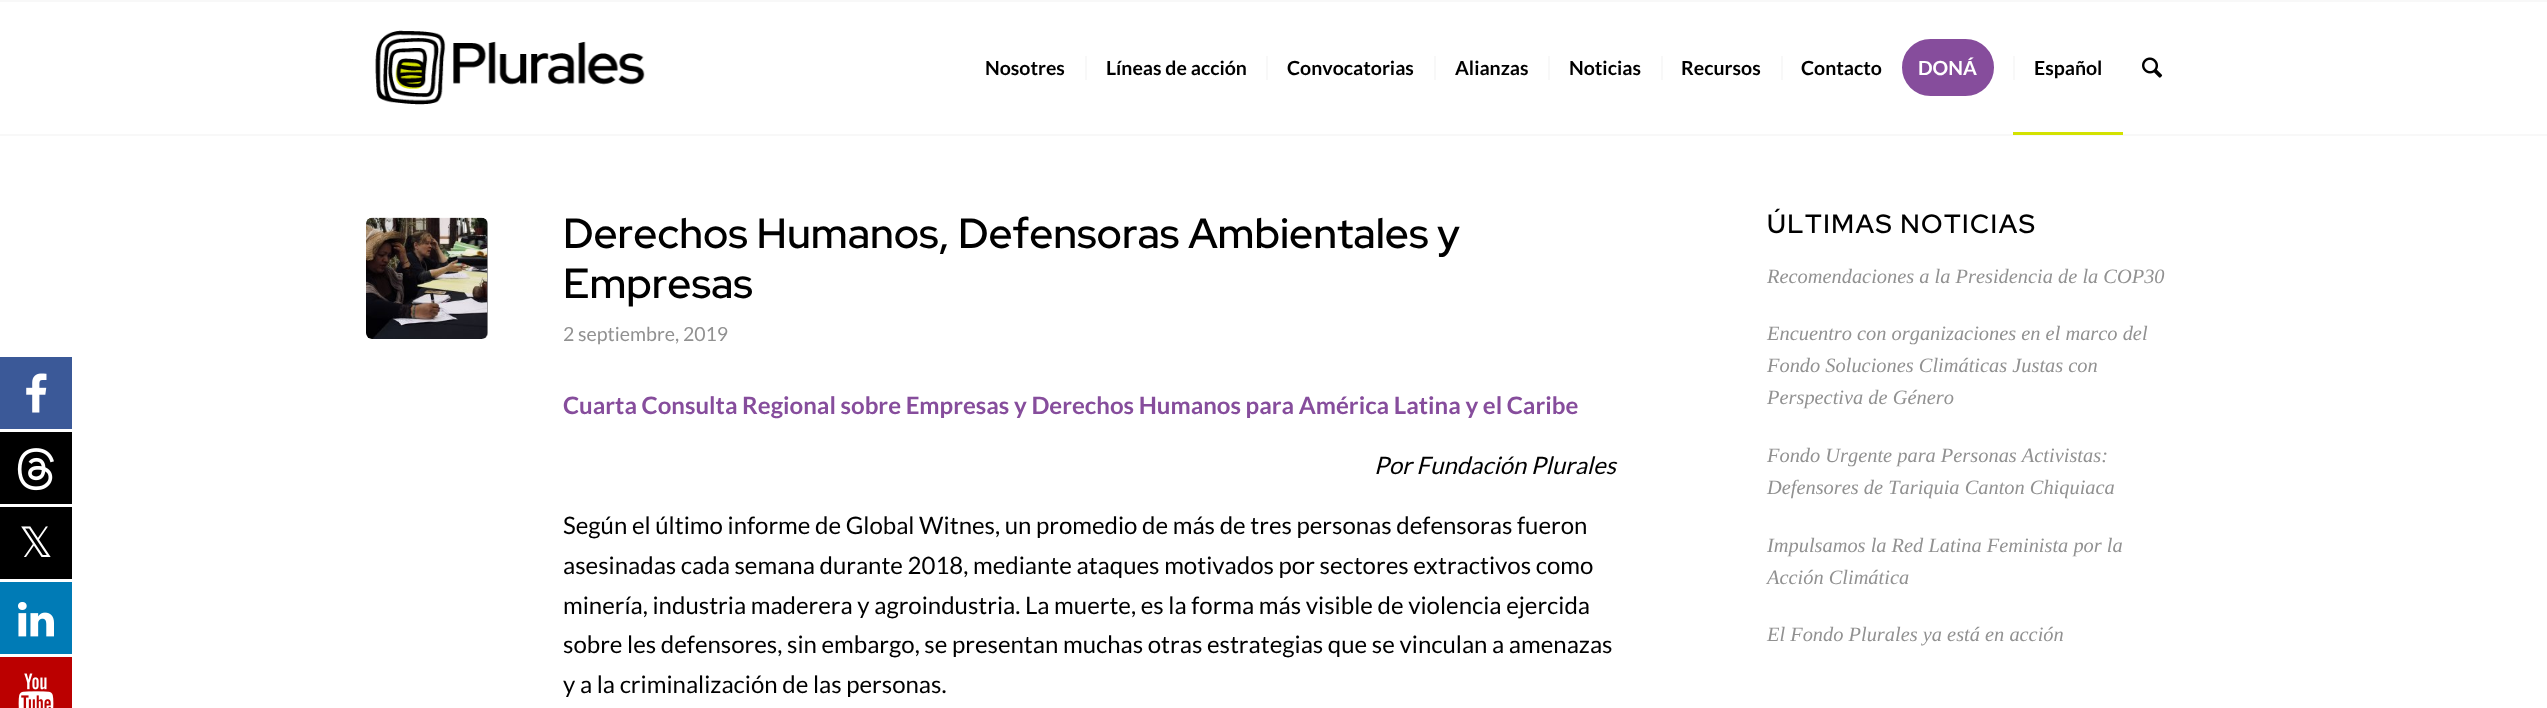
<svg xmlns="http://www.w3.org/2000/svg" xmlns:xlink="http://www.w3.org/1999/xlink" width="2547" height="708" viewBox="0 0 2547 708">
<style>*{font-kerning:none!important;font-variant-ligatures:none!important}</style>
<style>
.cls-1{font:42px DejaVu Sans;fill:#ffffff}
.cls-2{font:bold 19.5px Lato;fill:#000000}
.cls-3{font:bold 19.5px Lato;fill:#ffffff}
.cls-4{font:600 42px Red Hat Display;fill:#000000}
.cls-5{font:19.5px Lato;fill:#919191}
.cls-6{font:bold 24px Lato;fill:#864d9c}
.cls-7{font:italic 24px Lato;fill:#000000}
.cls-8{font:24px Lato;fill:#000000}
.cls-9{font:600 26.4px Red Hat Display;letter-spacing:1.5px;fill:#000000}
.cls-10{font:italic 20.4px Liberation Serif;fill:#919191}
</style>
<rect width="100%" height="100%" fill="#ffffff"/>
<rect fill="#3b5998" x="0" y="357" width="72" height="72"/>
<image xlink:href="image0.png" x="26" y="373" width="21" height="40"/>
<rect fill="#000000" x="0" y="432" width="72" height="72"/>
<image xlink:href="image1.png" x="17" y="448" width="37" height="43"/>
<rect fill="#000000" x="0" y="507" width="72" height="72"/>
<rect fill="#007bb6" x="0" y="582" width="72" height="72"/>
<image xlink:href="image2.png" x="18" y="602" width="36" height="35"/>
<rect fill="#bb0000" x="0" y="657" width="72" height="51"/>
<image xlink:href="image3.png" x="18" y="673" width="36" height="35"/>
<rect fill="#f8f8f8" x="0" y="0" width="2547" height="2"/>
<rect fill="#f8f8f8" x="0" y="134" width="2547" height="2"/>
<image xlink:href="image4.png" x="375" y="30" width="270" height="75"/>
<rect fill="#f8f8f8" x="1085" y="56" width="2" height="24"/>
<rect fill="#f8f8f8" x="1266" y="56" width="2" height="24"/>
<rect fill="#f8f8f8" x="1434" y="56" width="2" height="24"/>
<rect fill="#f8f8f8" x="1548" y="56" width="2" height="24"/>
<rect fill="#f8f8f8" x="1661" y="56" width="2" height="24"/>
<rect fill="#f8f8f8" x="1781" y="56" width="2" height="24"/>
<rect fill="#864d9c" stroke="#864d9c" stroke-width="3" x="1903.5" y="40.5" width="89" height="54" rx="27"/>
<rect fill="#f8f8f8" x="2013" y="56" width="2" height="24"/>
<rect fill="#d3e200" x="2013" y="132" width="110" height="3"/>
<image xlink:href="image5.png" x="2142" y="57" width="21" height="21"/>
<rect fill="#919191" x="366" y="218" width="122" height="121" rx="6"/>
<image xlink:href="image6.png" x="366" y="217" width="122" height="122"/>
<text class="cls-1" x="19" y="557">𝕏</text>
<text class="cls-2" x="985" y="75">Nosotres</text>
<text class="cls-2" x="1106" y="75">Líneas de acción</text>
<text class="cls-2" x="1287" y="75">Convocatorias</text>
<text class="cls-2" x="1455" y="75">Alianzas</text>
<text class="cls-2" x="1569" y="75">Noticias</text>
<text class="cls-2" x="1681" y="75">Recursos</text>
<text class="cls-2" x="1801" y="75">Contacto</text>
<text class="cls-3" x="1918" y="75">DONÁ</text>
<text class="cls-2" x="2034" y="75">Español</text>
<text class="cls-4"><tspan x="563" y="248">Derechos Humanos, Defensoras Ambientales y</tspan><tspan x="563" y="298">Empresas</tspan></text>
<text class="cls-5" x="563" y="341">2 septiembre, 2019</text>
<text class="cls-6" x="563" y="414">Cuarta Consulta Regional sobre Empresas y Derechos Humanos para América Latina y el Caribe</text>
<text class="cls-7" x="1374" y="474">Por Fundación Plurales</text>
<text class="cls-8"><tspan x="563" y="534">Según el último informe de Global Witnes, un promedio de más de tres personas defensoras fueron</tspan><tspan x="563" y="574">asesinadas cada semana durante 2018, mediante ataques motivados por sectores extractivos como</tspan><tspan x="563" y="614">minería, industria maderera y agroindustria. La muerte, es la forma más visible de violencia ejercida</tspan><tspan x="563" y="653">sobre les defensores, sin embargo, se presentan muchas otras estrategias que se vinculan a amenazas</tspan><tspan x="563" y="693">y a la criminalización de las personas.</tspan></text>
<text class="cls-9" x="1767" y="233">ÚLTIMAS NOTICIAS</text>
<text class="cls-10" x="1767" y="283">Recomendaciones a la Presidencia de la COP30</text>
<text class="cls-10"><tspan x="1767" y="340">Encuentro con organizaciones en el marco del</tspan><tspan x="1767" y="372">Fondo Soluciones Climáticas Justas con</tspan><tspan x="1767" y="404">Perspectiva de Género</tspan></text>
<text class="cls-10"><tspan x="1767" y="462">Fondo Urgente para Personas Activistas:</tspan><tspan x="1767" y="494">Defensores de Tariquia Canton Chiquiaca</tspan></text>
<text class="cls-10"><tspan x="1767" y="552">Impulsamos la Red Latina Feminista por la</tspan><tspan x="1767" y="584">Acción Climática</tspan></text>
<text class="cls-10" x="1767" y="641">El Fondo Plurales ya está en acción</text>
</svg>
